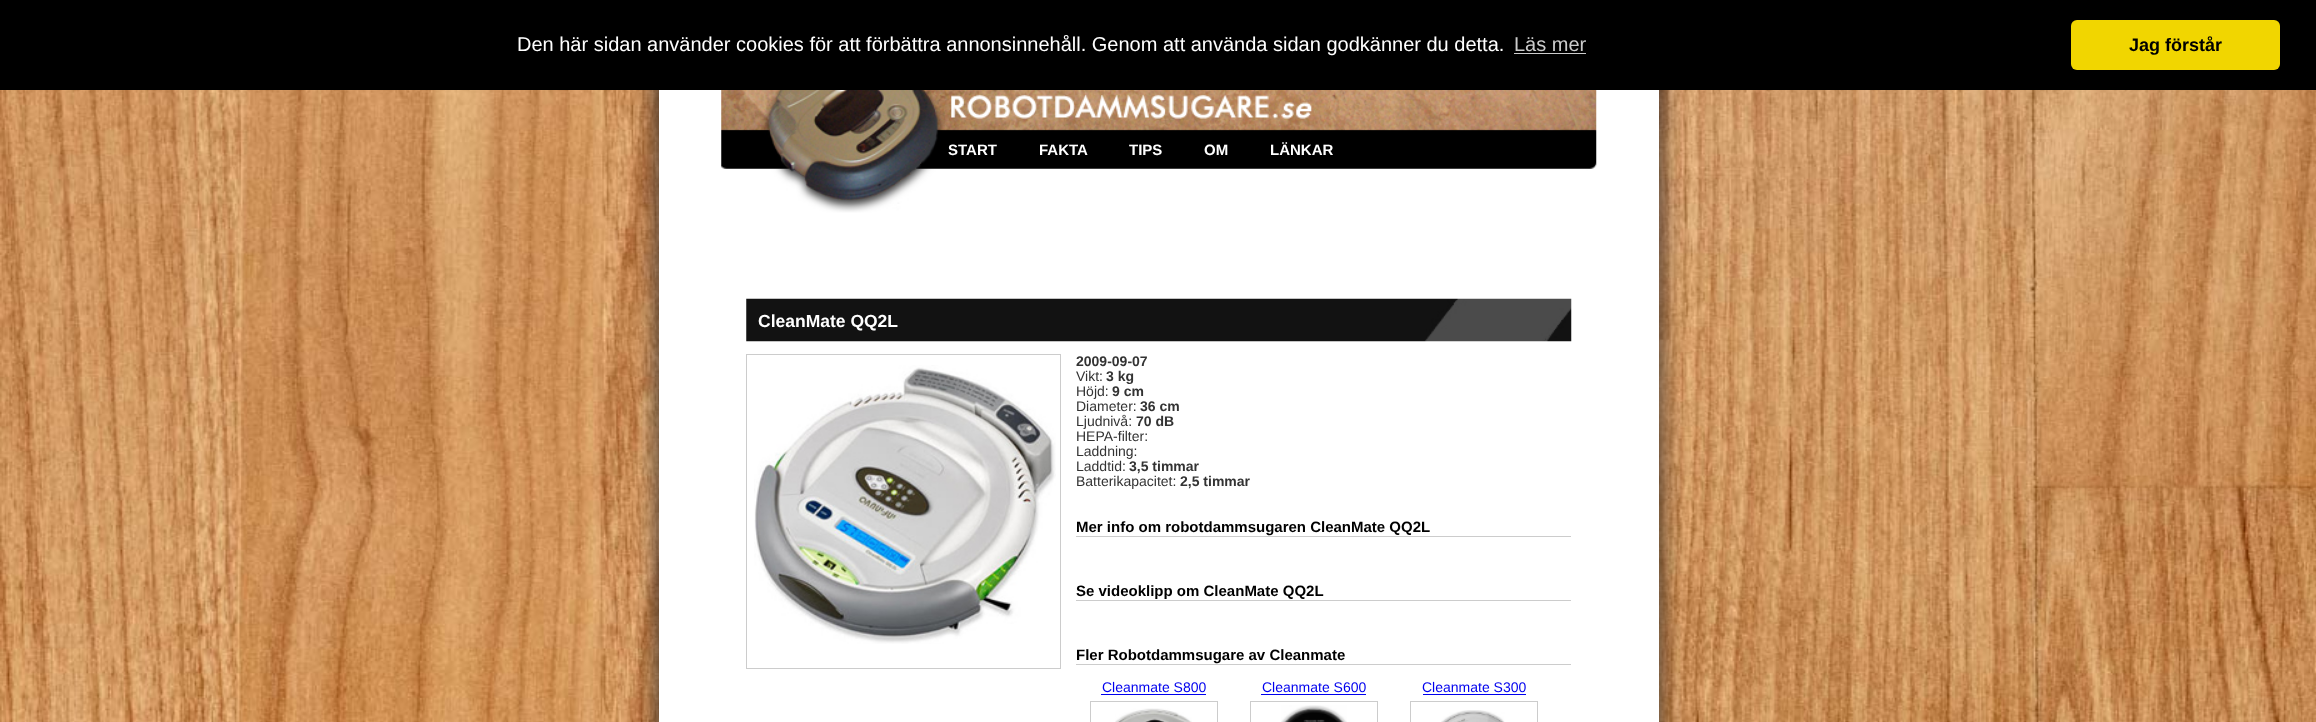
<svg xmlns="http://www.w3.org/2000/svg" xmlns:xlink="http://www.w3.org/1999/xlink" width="2316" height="722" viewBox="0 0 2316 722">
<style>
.cls-1{font:20px Liberation Sans;fill:#ffffff}
.cls-2{font:20px Liberation Sans;fill:#cccccc}
.cls-3{font:bold 18px Liberation Sans;fill:#000000}
.cls-4{font:bold 15px Liberation Sans;fill:#ffffff}
.cls-5{font:bold 17.5px Liberation Sans;fill:#ffffff}
.cls-6{font:bold 14px Liberation Sans;fill:#333333}
.cls-7{font:14px Liberation Sans;fill:#333333}
.cls-8{font:bold 15px Liberation Sans;fill:#000000}
.cls-9{font:14px Liberation Sans;fill:#0000ee}
</style>
<rect width="100%" height="100%" fill="#ffffff"/>
<image xlink:href="image0.png" x="0" y="90" width="2316" height="632"/>
<rect fill="#333333" filter="blur(12.5px)" x="659" y="0" width="1000" height="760"/>
<rect fill="#000000" x="0" y="0" width="2316" height="90"/>
<rect fill="#cccccc" x="1514" y="53" width="72" height="1"/>
<rect fill="#f1d600" x="2071" y="20" width="209" height="50" rx="6"/>
<rect fill="#ffffff" x="659" y="90" width="1000" height="632"/>
<image xlink:href="image1.png" x="721" y="90" width="876" height="123"/>
<image xlink:href="image2.png" x="951" y="94" width="361" height="25"/>
<image xlink:href="image3.png" x="746" y="298" width="826" height="44"/>
<rect fill="none" stroke="#cccccc" x="746.5" y="354.5" width="314" height="314"/>
<image xlink:href="image4.png" x="754" y="365" width="302" height="279"/>
<rect fill="#cccccc" x="1076" y="536" width="495" height="1"/>
<rect fill="#cccccc" x="1076" y="600" width="495" height="1"/>
<rect fill="#cccccc" x="1076" y="664" width="495" height="1"/>
<rect fill="#0000ee" x="1101" y="694" width="105" height="1"/>
<rect fill="none" stroke="#cccccc" x="1090.5" y="701.5" width="127" height="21"/>
<image xlink:href="image5.png" x="1115" y="708" width="77" height="14"/>
<rect fill="#0000ee" x="1261" y="694" width="105" height="1"/>
<rect fill="none" stroke="#cccccc" x="1250.5" y="701.5" width="127" height="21"/>
<image xlink:href="image6.png" x="1281" y="705" width="66" height="17"/>
<rect fill="#0000ee" x="1423" y="694" width="103" height="1"/>
<rect fill="none" stroke="#cccccc" x="1410.5" y="701.5" width="127" height="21"/>
<image xlink:href="image7.png" x="1441" y="710" width="64" height="12"/>
<text class="cls-1" x="517" y="51">Den här sidan använder cookies för att förbättra annonsinnehåll. Genom att använda sidan godkänner du detta.</text>
<text class="cls-2" x="1514" y="51">Läs mer</text>
<text class="cls-3" x="2129" y="51">Jag förstår</text>
<text class="cls-4" x="948" y="155">START</text>
<text class="cls-4" x="1039" y="155">FAKTA</text>
<text class="cls-4" x="1129" y="155">TIPS</text>
<text class="cls-4" x="1204" y="155">OM</text>
<text class="cls-4" x="1270" y="155">LÄNKAR</text>
<text class="cls-5" x="758" y="327">CleanMate QQ2L</text>
<text class="cls-6" x="1076" y="366">2009-09-07</text>
<text class="cls-7" x="1076" y="381">Vikt:</text>
<text class="cls-6" x="1106" y="381">3 kg</text>
<text class="cls-7" x="1076" y="396">Höjd:</text>
<text class="cls-6" x="1112" y="396">9 cm</text>
<text class="cls-7" x="1076" y="411">Diameter:</text>
<text class="cls-6" x="1140" y="411">36 cm</text>
<text class="cls-7" x="1076" y="426">Ljudnivå:</text>
<text class="cls-6" x="1136" y="426">70 dB</text>
<text class="cls-7"><tspan x="1076" y="441">HEPA-filter:</tspan><tspan x="1076" y="456">Laddning:</tspan><tspan x="1076" y="471">Laddtid:</tspan></text>
<text class="cls-6" x="1129" y="471">3,5 timmar</text>
<text class="cls-7" x="1076" y="486">Batterikapacitet:</text>
<text class="cls-6" x="1180" y="486">2,5 timmar</text>
<text class="cls-8" x="1076" y="532">Mer info om robotdammsugaren CleanMate QQ2L</text>
<text class="cls-8" x="1076" y="596">Se videoklipp om CleanMate QQ2L</text>
<text class="cls-8" x="1076" y="660">Fler Robotdammsugare av Cleanmate</text>
<text class="cls-9" x="1102" y="692">Cleanmate S800</text>
<text class="cls-9" x="1262" y="692">Cleanmate S600</text>
<text class="cls-9" x="1422" y="692">Cleanmate S300</text>
</svg>
